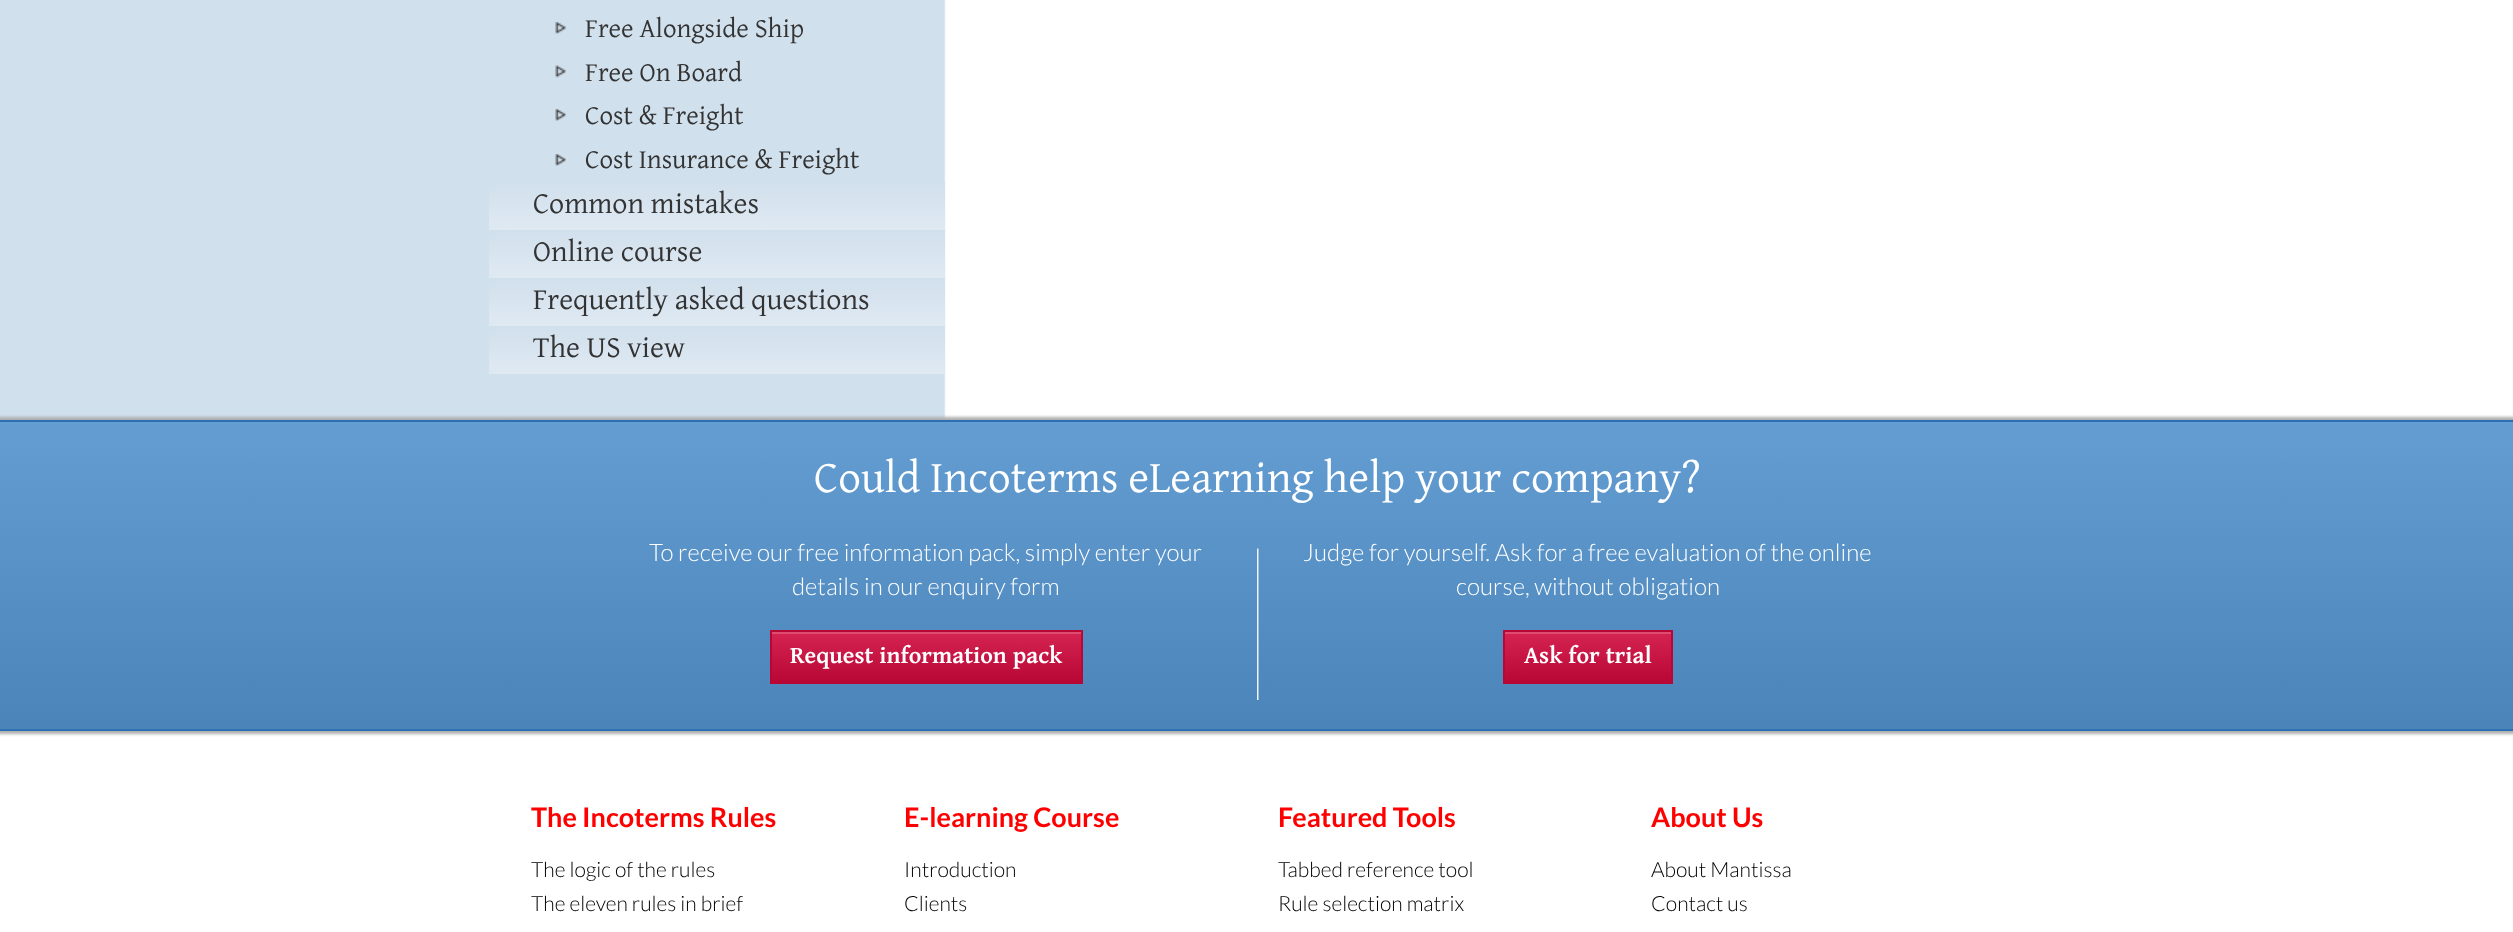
<svg xmlns="http://www.w3.org/2000/svg" xmlns:xlink="http://www.w3.org/1999/xlink" width="2513" height="932" viewBox="0 0 2513 932">
<style>
.cls-1{font:27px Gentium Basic;fill:#333333}
.cls-2{font:30px Gentium Basic;fill:#333333}
.cls-3{font:45px Gentium Basic;fill:#ffffff}
.cls-4{font:300 24px Lato;fill:#ffffff}
.cls-5{font:bold 24px Gentium Basic;fill:#ffffff}
.cls-6{font:bold 27px Lato;fill:#ff0000}
.cls-7{font:300 21px Lato;fill:#000000}
</style>
<defs>
<linearGradient id="g1" gradientUnits="userSpaceOnUse" x1="489" y1="182" x2="489" y2="230"><stop offset="0" stop-color="#d1e0ed"/><stop offset="1" stop-color="#dfe9f2"/></linearGradient>
<linearGradient id="g2" gradientUnits="userSpaceOnUse" x1="489" y1="230" x2="489" y2="278"><stop offset="0" stop-color="#d1e0ed"/><stop offset="1" stop-color="#dfe9f2"/></linearGradient>
<linearGradient id="g3" gradientUnits="userSpaceOnUse" x1="489" y1="278" x2="489" y2="326"><stop offset="0" stop-color="#d1e0ed"/><stop offset="1" stop-color="#dfe9f2"/></linearGradient>
<linearGradient id="g4" gradientUnits="userSpaceOnUse" x1="489" y1="326" x2="489" y2="374"><stop offset="0" stop-color="#d1e0ed"/><stop offset="1" stop-color="#dfe9f2"/></linearGradient>
<linearGradient id="g5" gradientUnits="userSpaceOnUse" x1="0" y1="422" x2="0" y2="729"><stop offset="0" stop-color="#639dd2"/><stop offset="1" stop-color="#4a84b8"/></linearGradient>
<linearGradient id="g6" gradientUnits="userSpaceOnUse" x1="771" y1="632" x2="771" y2="683"><stop offset="0" stop-color="#d62452"/><stop offset="1" stop-color="#b90735"/></linearGradient>
<linearGradient id="g7" gradientUnits="userSpaceOnUse" x1="1505" y1="632" x2="1505" y2="683"><stop offset="0" stop-color="#d62452"/><stop offset="1" stop-color="#b90735"/></linearGradient>
</defs>
<rect width="100%" height="100%" fill="#ffffff"/>
<rect fill="#d1e0ed" x="0" y="0" width="2513" height="420"/>
<image xlink:href="image0.png" x="944" y="0" width="1569" height="420"/>
<image xlink:href="image1.png" x="555" y="22" width="11" height="12"/>
<image xlink:href="image2.png" x="555" y="65" width="11" height="13"/>
<image xlink:href="image1.png" x="555" y="109" width="11" height="12"/>
<image xlink:href="image1.png" x="555" y="154" width="11" height="12"/>
<rect fill="url(#g1)" x="489" y="182" width="456" height="48"/>
<rect fill="url(#g2)" x="489" y="230" width="456" height="48"/>
<rect fill="url(#g3)" x="489" y="278" width="456" height="48"/>
<rect fill="url(#g4)" x="489" y="326" width="456" height="48"/>
<rect fill="#adadad" filter="blur(1.5px)" x="-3" y="417" width="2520" height="317"/>
<rect fill="url(#g5)" x="0" y="422" width="2513" height="307"/>
<rect fill="#2c6fb4" x="0" y="420" width="2513" height="2"/>
<rect fill="#2c6fb4" x="0" y="729" width="2513" height="2"/>
<rect fill="url(#g6)" x="772" y="634" width="309" height="48"/>
<rect fill="#de4c71" x="771" y="632" width="311" height="2"/>
<rect fill="none" stroke="#b90735" stroke-width="2" x="771" y="631" width="311" height="52"/>
<image xlink:href="image3.png" x="1257" y="548" width="2" height="152"/>
<rect fill="url(#g7)" x="1505" y="634" width="166" height="48"/>
<rect fill="#de4c71" x="1505" y="632" width="166" height="2"/>
<rect fill="none" stroke="#b90735" stroke-width="2" x="1504" y="631" width="168" height="52"/>
<text class="cls-1"><tspan x="585" y="37">Free Alongside Ship</tspan><tspan x="585" y="81">Free On Board</tspan><tspan x="585" y="124">Cost &amp; Freight</tspan><tspan x="585" y="168">Cost Insurance &amp; Freight</tspan></text>
<text class="cls-2"><tspan x="533" y="213">Common mistakes</tspan><tspan x="533" y="261">Online course</tspan><tspan x="533" y="309">Frequently asked questions</tspan><tspan x="533" y="357">The US view</tspan></text>
<text class="cls-3" x="814" y="492">Could Incoterms eLearning help your company?</text>
<text class="cls-4" x="649" y="561">To receive our free information pack, simply enter your</text>
<text class="cls-4" x="792" y="595">details in our enquiry form</text>
<text class="cls-5" x="790" y="663">Request information pack</text>
<text class="cls-4" x="1303" y="561">Judge for yourself. Ask for a free evaluation of the online</text>
<text class="cls-4" x="1456" y="595">course, without obligation</text>
<text class="cls-5" x="1524" y="663">Ask for trial</text>
<text class="cls-6" x="531" y="827">The Incoterms Rules</text>
<text class="cls-7"><tspan x="531" y="877">The logic of the rules</tspan><tspan x="531" y="911">The eleven rules in brief</tspan></text>
<text class="cls-6" x="904" y="827">E-learning Course</text>
<text class="cls-7"><tspan x="904" y="877">Introduction</tspan><tspan x="904" y="911">Clients</tspan></text>
<text class="cls-6" x="1278" y="827">Featured Tools</text>
<text class="cls-7"><tspan x="1278" y="877">Tabbed reference tool</tspan><tspan x="1278" y="911">Rule selection matrix</tspan></text>
<text class="cls-6" x="1651" y="827">About Us</text>
<text class="cls-7"><tspan x="1651" y="877">About Mantissa</tspan><tspan x="1651" y="911">Contact us</tspan></text>
</svg>
